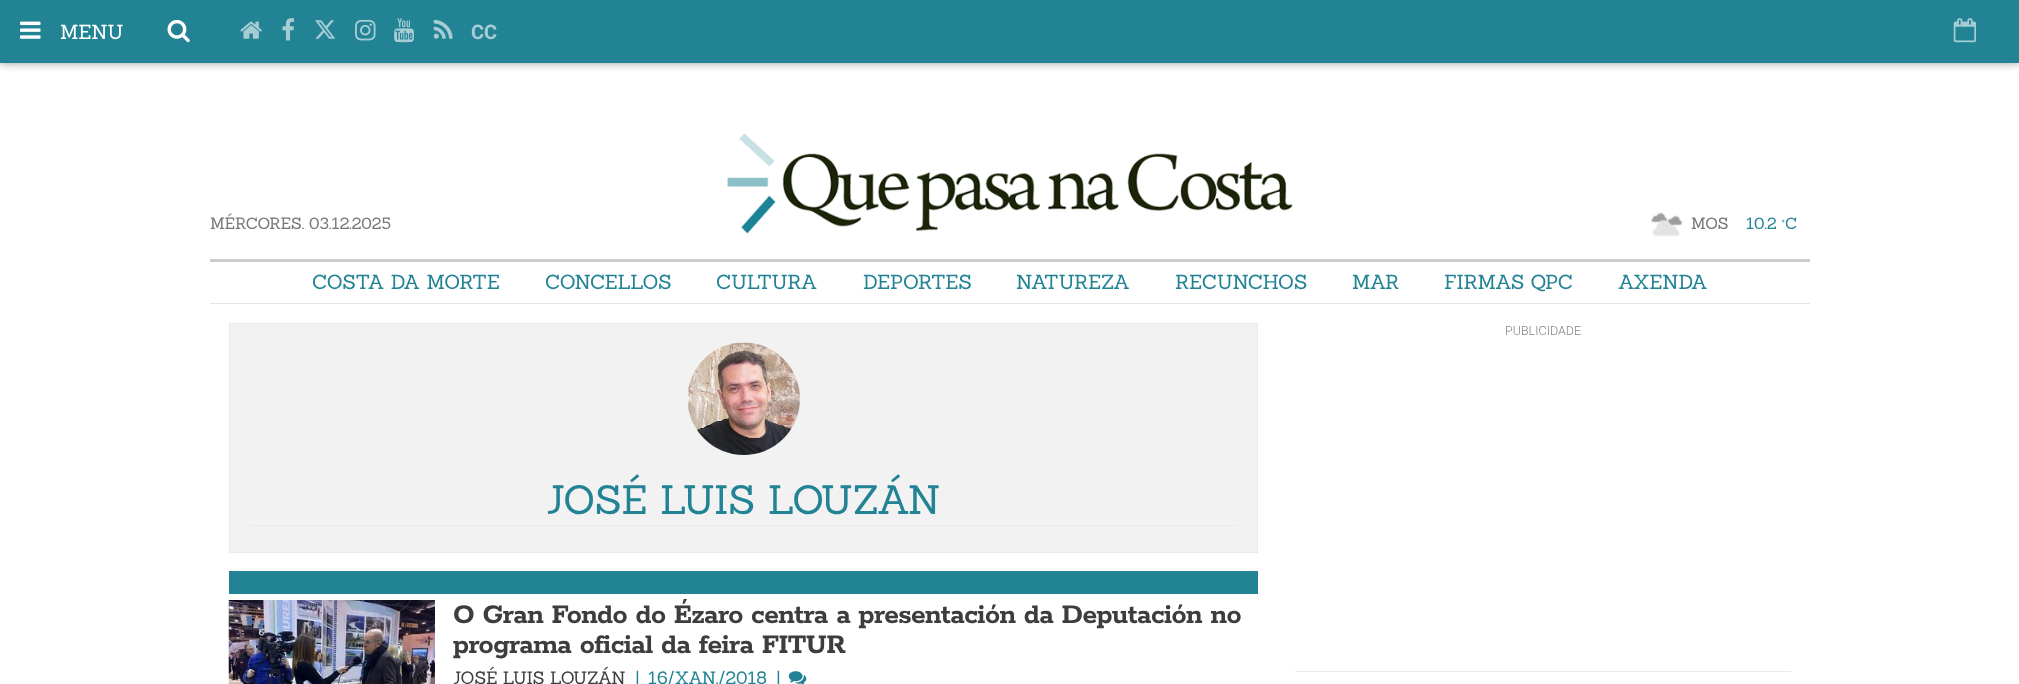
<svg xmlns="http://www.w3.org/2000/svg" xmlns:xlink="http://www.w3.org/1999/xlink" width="2019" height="684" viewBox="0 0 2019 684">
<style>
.cls-1{font:20px Sanchez;fill:#ffffff}
.cls-2{font:bold 20px Roboto;fill:#a7cdd5}
.cls-3{font:16px Sanchez;fill:#777777}
.cls-4{font:16px Sanchez;fill:#228395}
.cls-5{font:20px Sanchez;fill:#228395}
.cls-6{font:300 12.5px Roboto;fill:#838383}
.cls-7{font:40px Sanchez;fill:#228395}
.cls-8{font:bold 30px Rokkitt;letter-spacing:-0.6px;fill:#3d3d3d}
.cls-9{font:17.5px Sanchez;fill:#3d3d3d}
.cls-10{font:17.5px Sanchez;fill:#228395}
</style>
<rect width="100%" height="100%" fill="#ffffff"/>
<rect fill="#000000" fill-opacity="0.4" filter="blur(5px)" x="0" y="0" width="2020" height="63"/>
<rect fill="#228395" x="0" y="0" width="2019" height="63"/>
<image xlink:href="image0.png" x="20" y="21" width="21" height="18"/>
<image xlink:href="image1.png" x="167" y="19" width="23" height="24"/>
<image xlink:href="image2.png" x="240" y="21" width="22" height="18"/>
<image xlink:href="image3.png" x="282" y="18" width="13" height="23"/>
<image xlink:href="image4.png" x="315" y="20" width="21" height="19"/>
<image xlink:href="image5.png" x="355" y="19" width="21" height="22"/>
<image xlink:href="image6.png" x="394" y="18" width="20" height="25"/>
<image xlink:href="image7.png" x="433" y="19" width="20" height="20"/>
<image xlink:href="image8.png" x="1953" y="18" width="23" height="25"/>
<image xlink:href="image9.png" x="727" y="133" width="566" height="101"/>
<image xlink:href="image10.png" x="1651" y="212" width="32" height="25"/>
<rect fill="#cdcccc" x="210" y="259" width="1600" height="3"/>
<rect fill="#e6e5e6" x="210" y="303" width="1600" height="1"/>
<rect fill="#eaeaea" x="1295" y="671" width="496" height="1"/>
<rect fill="#f2f2f2" stroke="#eaeaea" x="229.5" y="323.5" width="1028" height="229"/>
<image xlink:href="image11.png" x="687" y="342" width="113" height="113"/>
<rect fill="#eaeaea" x="249" y="525" width="989" height="1"/>
<rect fill="#228395" x="229" y="571" width="1029" height="23"/>
<image xlink:href="image12.png" x="228" y="600" width="207" height="84"/>
<image xlink:href="image13.png" x="788" y="671" width="19" height="13"/>
<text class="cls-1" x="60" y="39">MENU</text>
<text class="cls-2" x="471" y="39">CC</text>
<text class="cls-3" x="210" y="229">MÉRCORES. 03.12.2025</text>
<text class="cls-3" x="1691" y="229">MOS</text>
<text class="cls-4" x="1746" y="229">10.2 °C</text>
<text class="cls-5" x="312" y="289">COSTA DA MORTE</text>
<text class="cls-5" x="545" y="289">CONCELLOS</text>
<text class="cls-5" x="716" y="289">CULTURA</text>
<text class="cls-5" x="863" y="289">DEPORTES</text>
<text class="cls-5" x="1016" y="289">NATUREZA</text>
<text class="cls-5" x="1175" y="289">RECUNCHOS</text>
<text class="cls-5" x="1352" y="289">MAR</text>
<text class="cls-5" x="1444" y="289">FIRMAS QPC</text>
<text class="cls-5" x="1618" y="289">AXENDA</text>
<text class="cls-6" x="1505" y="335">PUBLICIDADE</text>
<text class="cls-7" x="546" y="514">JOSÉ LUIS LOUZÁN</text>
<text class="cls-8"><tspan x="453" y="623">O Gran Fondo do Ézaro centra a presentación da Deputación no</tspan><tspan x="453" y="653">programa oficial da feira FITUR</tspan></text>
<text class="cls-9" x="453" y="684">JOSÉ LUIS LOUZÁN</text>
<text class="cls-10" x="636" y="684">|</text>
<text class="cls-10" x="648" y="684">16/XAN./2018</text>
<text class="cls-10" x="777" y="684">|</text>
</svg>
